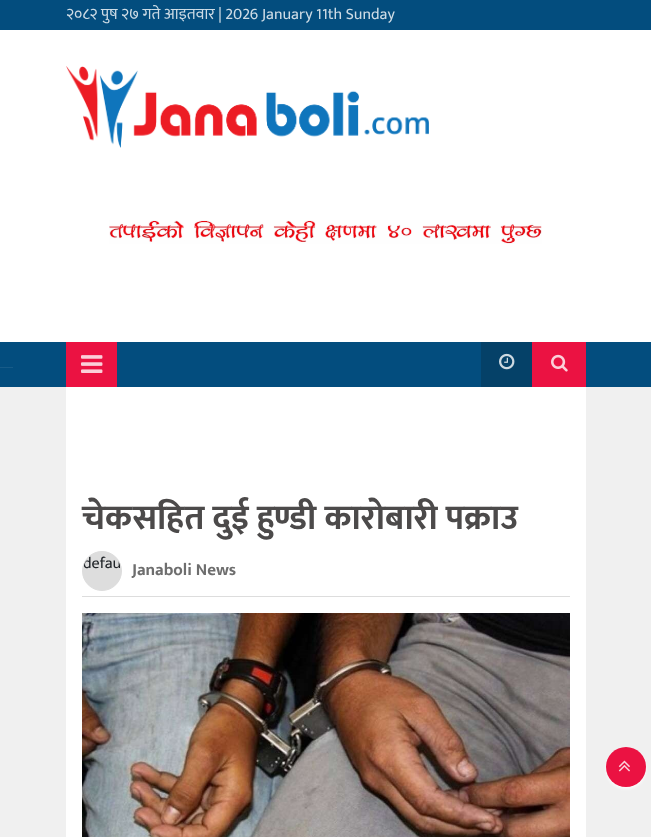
<svg xmlns="http://www.w3.org/2000/svg" xmlns:xlink="http://www.w3.org/1999/xlink" width="651" height="837" viewBox="0 0 651 837">
<style>
.cls-1{font:16px Mukta;fill:#cddbe5}
.cls-2{font:bold 35px Mukta;fill:#4c4a4a}
.cls-3{font:16px Mukta;fill:#212529}
.cls-4{font:bold 17px Mukta;fill:#6e6e6e}
</style>
<defs>
<clipPath id="clip1"><rect x="83" y="552" width="38" height="38" rx="19"/></clipPath>
</defs>
<rect width="100%" height="100%" fill="#f0f0f0"/>
<rect fill="#034d7e" x="0" y="0" width="651" height="30"/>
<rect fill="#ffffff" x="0" y="30" width="651" height="312"/>
<image xlink:href="image0.png" x="66" y="66" width="363" height="82"/>
<image xlink:href="image1.png" x="109" y="220" width="433" height="24"/>
<rect fill="#034d7e" x="0" y="342" width="651" height="45"/>
<rect fill="#eb1242" x="66" y="342" width="51" height="45"/>
<image xlink:href="image2.png" x="81" y="355" width="22" height="18"/>
<rect fill="#054168" x="481" y="342" width="51" height="45"/>
<image xlink:href="image3.png" x="499" y="353" width="16" height="17"/>
<rect fill="#eb1242" x="532" y="342" width="54" height="45"/>
<image xlink:href="image4.png" x="551" y="354" width="17" height="18"/>
<rect fill="#175b88" x="0" y="367" width="13" height="1"/>
<rect fill="#ffffff" x="66" y="387" width="520" height="450"/>
<rect fill="#dddddd" x="82" y="596" width="488" height="1"/>
<circle fill="#dddddd" stroke="#dddddd" cx="102" cy="571" r="19.5"/>
<image xlink:href="image5.png" x="82" y="613" width="488" height="224"/>
<rect fill="#ffffff" fill-opacity="0.8" filter="blur(1.5px)" x="606" y="749" width="40" height="40" rx="20"/>
<circle fill="#eb1242" cx="626" cy="767" r="20"/>
<image xlink:href="image6.png" x="618" y="760" width="12" height="12"/>
<text class="cls-1" x="66" y="19">२०८२ पुष २७ गते आइतवार | 2026 January 11th Sunday</text>
<text class="cls-2" x="82" y="529">चेकसहित दुई हुण्डी कारोबारी पक्राउ</text>
<g clip-path="url(#clip1)">
<text class="cls-3" x="83" y="568">defau</text>
</g>
<text class="cls-4" x="132" y="575">Janaboli News</text>
</svg>
